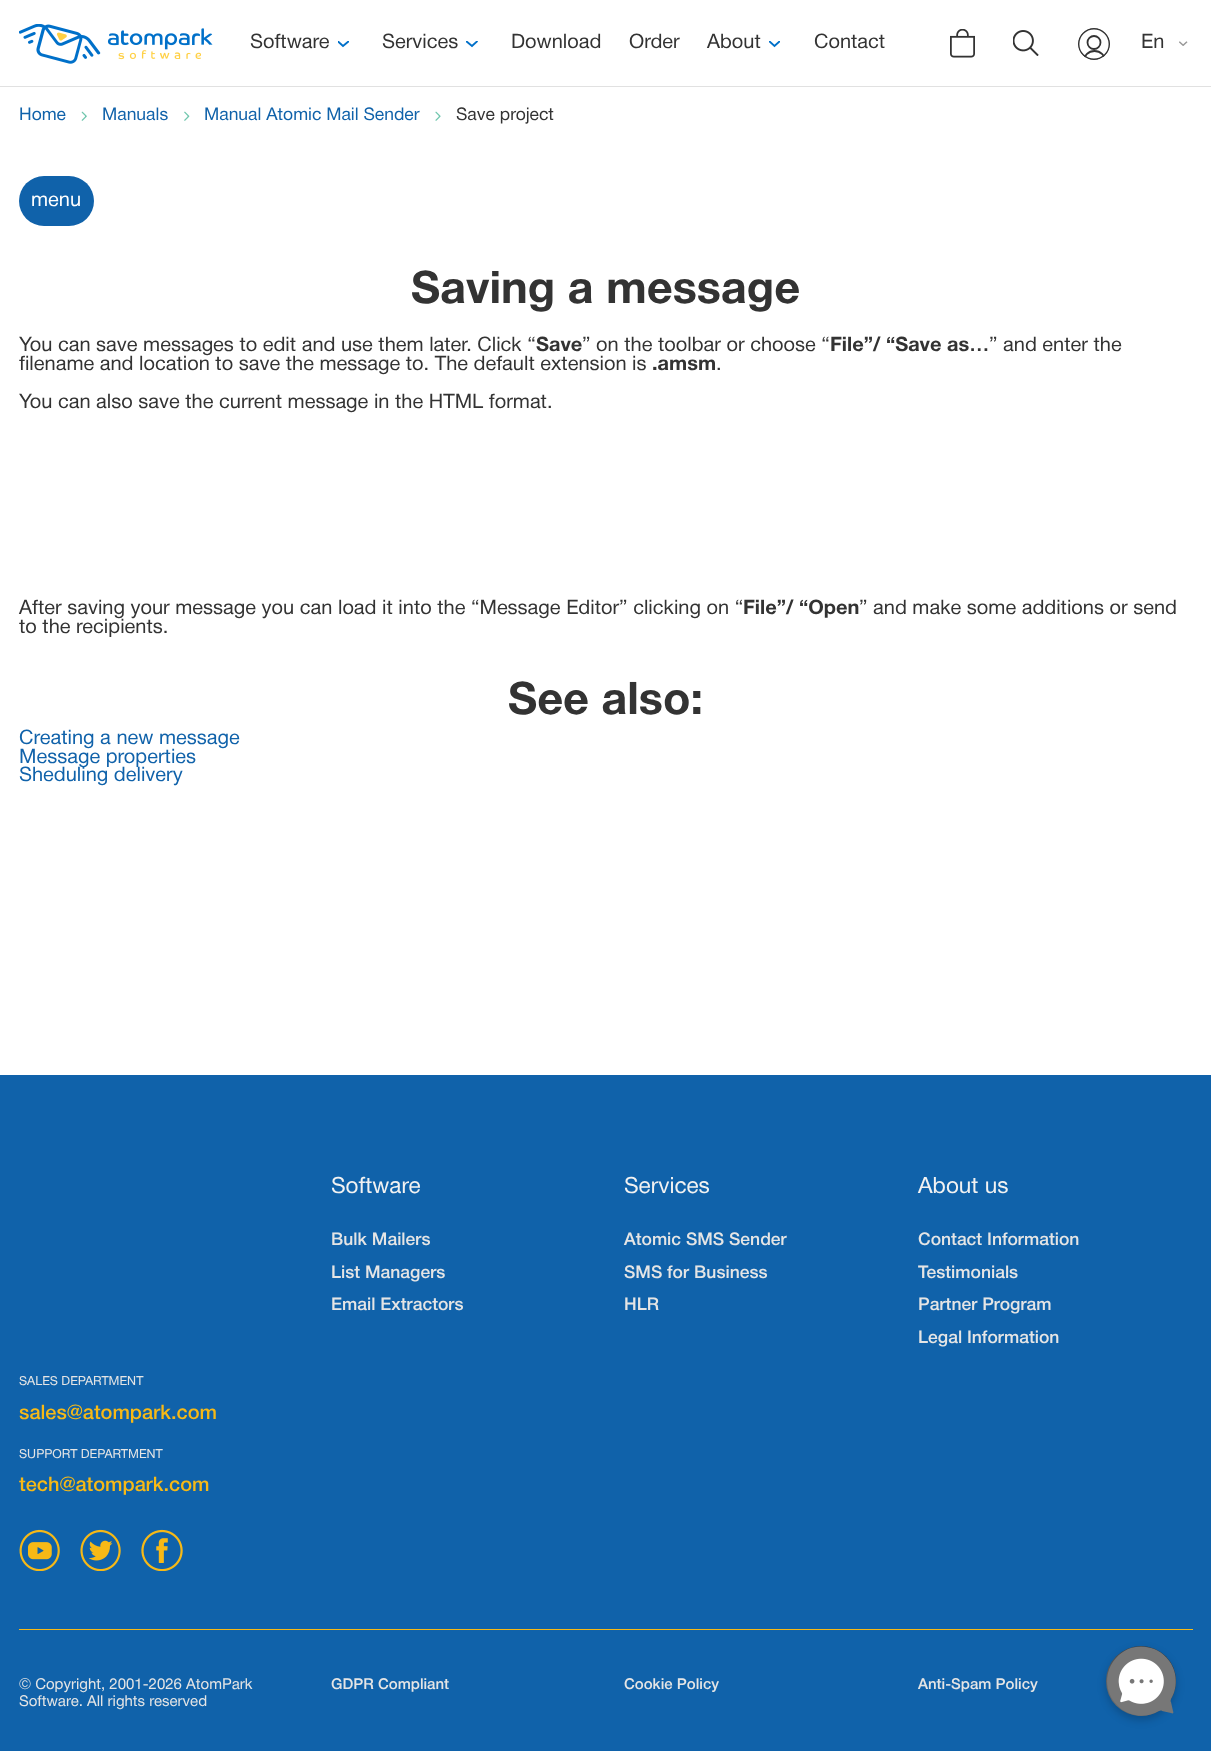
<svg xmlns="http://www.w3.org/2000/svg" xmlns:xlink="http://www.w3.org/1999/xlink" width="1211" height="1751" viewBox="0 0 1211 1751">
<style>
.cls-1{font:20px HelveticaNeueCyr;fill:#333333}
.cls-2{font:17.5px HelveticaNeueCyr;fill:#1062aa}
.cls-3{font:17.5px HelveticaNeueCyr;fill:#333333}
.cls-4{font:20px HelveticaNeueCyr;fill:#ffffff}
.cls-5{font:bold 45px HelveticaNeueCyr;fill:#333333}
.cls-6{font:bold 20px HelveticaNeueCyr;fill:#333333}
.cls-7{font:20px HelveticaNeueCyr;fill:#1062aa}
.cls-8{font:22.5px HelveticaNeueCyr;fill:#f2f2f2}
.cls-9{font:500 17.5px HelveticaNeueCyr;fill:#e5e5e5}
.cls-10{font:12.5px HelveticaNeueCyr;fill:#e5e5e5}
.cls-11{font:500 20px HelveticaNeueCyr;fill:#f7b916}
.cls-12{font:15px HelveticaNeueCyr;fill:#e5e5e5}
.cls-13{font:500 15px HelveticaNeueCyr;fill:#e5e5e5}
</style>
<defs>
<clipPath id="clip1"><rect x="338" y="41" width="11" height="7"/></clipPath>
<clipPath id="clip2"><rect x="466" y="41" width="12" height="7"/></clipPath>
<clipPath id="clip3"><rect x="769" y="41" width="11" height="7"/></clipPath>
<clipPath id="clip4"><rect x="1078" y="28" width="32" height="32" rx="16"/></clipPath>
<linearGradient id="g1" gradientUnits="userSpaceOnUse" x1="1106" y1="1716" x2="1176" y2="1646"><stop offset="0" stop-color="#777777"/><stop offset="1" stop-color="#222222"/></linearGradient>
</defs>
<rect width="100%" height="100%" fill="#ffffff"/>
<rect fill="#e1e1e1" x="0" y="86" width="1211" height="1"/>
<image xlink:href="image0.png" x="19" y="24" width="194" height="40"/>
<g clip-path="url(#clip1)">
<path fill="none" stroke="#0070c9" stroke-width="1.9" d="M337.5 41L343 46L349 41"/>
</g>
<g clip-path="url(#clip2)">
<path fill="none" stroke="#0070c9" stroke-width="1.9" d="M466 41L472 46L477.5 41"/>
</g>
<g clip-path="url(#clip3)">
<path fill="none" stroke="#0070c9" stroke-width="1.9" d="M769 41L774.5 46L780 41"/>
</g>
<image xlink:href="image1.png" x="950" y="29" width="25" height="29"/>
<image xlink:href="image2.png" x="1013" y="30" width="26" height="26"/>
<g clip-path="url(#clip4)">
<circle fill="none" stroke="#333333" stroke-width="1.8" cx="1094" cy="44" r="15.5"/>
</g>
<circle fill="none" stroke="#333333" stroke-width="1.8" cx="1094" cy="42.5" r="6.5"/>
<g clip-path="url(#clip4)">
<circle fill="none" stroke="#333333" stroke-width="1.8" cx="1094.5" cy="62" r="11"/>
</g>
<image xlink:href="image3.png" x="1179" y="41" width="9" height="5"/>
<image xlink:href="image4.png" x="81" y="111" width="6" height="10"/>
<image xlink:href="image5.png" x="184" y="111" width="6" height="10"/>
<image xlink:href="image6.png" x="435" y="111" width="6" height="10"/>
<rect fill="#1062aa" x="19" y="176" width="75" height="50" rx="25"/>
<rect fill="#1062aa" x="0" y="1075" width="1211" height="676"/>
<rect fill="#f7b916" x="19" y="1629" width="1174" height="1"/>
<image xlink:href="image7.png" x="19" y="1529" width="41" height="42"/>
<image xlink:href="image8.png" x="80" y="1529" width="41" height="42"/>
<image xlink:href="image9.png" x="141" y="1529" width="42" height="42"/>
<rect fill="#000000" fill-opacity="0.2" filter="blur(4px)" x="1106" y="1650" width="70" height="70" rx="35"/>
<circle fill="url(#g1)" cx="1141" cy="1681" r="35"/>
<path fill="#777777" d="M1166 1657C1152 1643 1129 1643 1116 1658C1104 1671 1104 1692 1117 1705C1128 1717 1146 1719 1159 1711C1160 1711 1161 1710 1162 1711L1171 1713C1173 1714 1174 1713 1173 1711L1171 1702C1170 1701 1171 1700 1171 1699C1179 1686 1177 1668 1166 1657Z"/>
<image xlink:href="image10.png" x="1118" y="1658" width="46" height="46"/>
<image xlink:href="image11.png" x="1129" y="1678" width="24" height="6"/>
<text class="cls-1" x="250" y="48">Software</text>
<text class="cls-1" x="382" y="48">Services</text>
<text class="cls-1" x="511" y="48">Download</text>
<text class="cls-1" x="629" y="48">Order</text>
<text class="cls-1" x="707" y="48">About</text>
<text class="cls-1" x="814" y="48">Contact</text>
<text class="cls-1" x="1141" y="48">En</text>
<text class="cls-2" x="19" y="120">Home</text>
<text class="cls-2" x="102" y="120">Manuals</text>
<text class="cls-2" x="204" y="120">Manual Atomic Mail Sender</text>
<text class="cls-3" x="456" y="120">Save project</text>
<text class="cls-4" x="31" y="206">menu</text>
<text class="cls-5" x="411" y="303">Saving a message</text>
<text class="cls-1" x="19" y="351">You can save messages to edit and use them later. Click “</text>
<text class="cls-6" x="536" y="351">Save</text>
<text class="cls-1" x="582" y="351">” on the toolbar or choose “</text>
<text class="cls-6" x="830" y="351">File”/ “Save as…</text>
<text class="cls-1" x="989" y="351">” and enter the</text>
<text class="cls-1" x="19" y="370">filename and location to save the message to. The default extension is</text>
<text class="cls-6" x="652" y="370">.amsm</text>
<text class="cls-1" x="716" y="370">.</text>
<text class="cls-1" x="19" y="408">You can also save the current message in the HTML format.</text>
<text class="cls-1" x="19" y="614">After saving your message you can load it into the “Message Editor” clicking on “</text>
<text class="cls-6" x="743" y="614">File”/ “Open</text>
<text class="cls-1" x="859" y="614">” and make some additions or send</text>
<text class="cls-1" x="19" y="633">to the recipients.</text>
<text class="cls-5" x="508" y="714">See also:</text>
<text class="cls-7"><tspan x="19" y="744">Creating a new message</tspan><tspan x="19" y="763">Message properties</tspan><tspan x="19" y="781">Sheduling delivery</tspan></text>
<text class="cls-8" x="331" y="1193">Software</text>
<text class="cls-9"><tspan x="331" y="1245">Bulk Mailers</tspan><tspan x="331" y="1278">List Managers</tspan><tspan x="331" y="1310">Email Extractors</tspan></text>
<text class="cls-8" x="624" y="1193">Services</text>
<text class="cls-9"><tspan x="624" y="1245">Atomic SMS Sender</tspan><tspan x="624" y="1278">SMS for Business</tspan><tspan x="624" y="1310">HLR</tspan></text>
<text class="cls-8" x="918" y="1193">About us</text>
<text class="cls-9"><tspan x="918" y="1245">Contact Information</tspan><tspan x="918" y="1278">Testimonials</tspan><tspan x="918" y="1310">Partner Program</tspan><tspan x="918" y="1343">Legal Information</tspan></text>
<text class="cls-10" x="19" y="1385">SALES DEPARTMENT</text>
<text class="cls-11" x="19" y="1419">sales@atompark.com</text>
<text class="cls-10" x="19" y="1458">SUPPORT DEPARTMENT</text>
<text class="cls-11" x="19" y="1491">tech@atompark.com</text>
<text class="cls-12"><tspan x="19" y="1689">© Copyright, 2001-2026 AtomPark</tspan><tspan x="19" y="1706">Software. All rights reserved</tspan></text>
<text class="cls-13" x="331" y="1689">GDPR Compliant</text>
<text class="cls-13" x="624" y="1689">Cookie Policy</text>
<text class="cls-13" x="918" y="1689">Anti-Spam Policy</text>
</svg>
